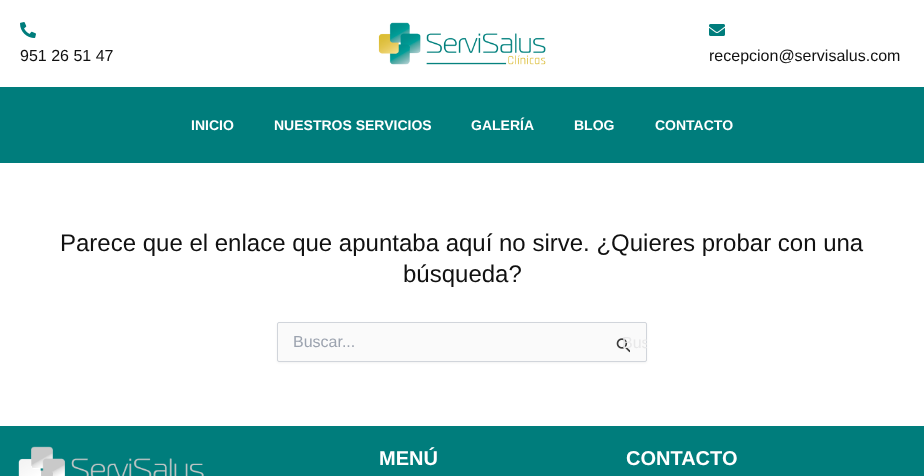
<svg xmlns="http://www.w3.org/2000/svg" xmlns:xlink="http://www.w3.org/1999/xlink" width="924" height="476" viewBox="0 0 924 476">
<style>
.cls-1{font:16px Liberation Sans;fill:#111111}
.cls-2{font:bold 14px Liberation Sans;fill:#ffffff}
.cls-3{font:24px Liberation Sans;fill:#111111}
.cls-4{font:16px Liberation Sans;fill:#9ca3af}
.cls-5{font:16px Liberation Sans;fill:#e8e8e9}
.cls-6{font:bold 20px Liberation Sans;fill:#ffffff}
</style>
<defs>
<clipPath id="clip1"><rect x="602" y="322" width="45" height="42" rx="2"/></clipPath>
</defs>
<rect width="100%" height="100%" fill="#ffffff"/>
<image xlink:href="image0.png" x="20" y="22" width="16" height="16"/>
<image xlink:href="image1.png" x="378" y="22" width="168" height="43"/>
<image xlink:href="image2.png" x="709" y="24" width="16" height="12"/>
<rect fill="#007d7c" x="0" y="87" width="924" height="76"/>
<rect fill="#000000" fill-opacity="0.05" filter="blur(1px)" x="277" y="323" width="370" height="40" rx="2"/>
<rect fill="#fafafa" stroke="#d1d5db" x="277.5" y="322.5" width="369" height="39" rx="1.5"/>
<image xlink:href="image3.png" x="616" y="338" width="14" height="15"/>
<rect fill="#007d7c" x="0" y="426" width="924" height="50"/>
<image xlink:href="image4.png" x="18" y="446" width="186" height="30"/>
<text class="cls-1" x="20" y="61">951 26 51 47</text>
<text class="cls-1" x="709" y="61">recepcion@servisalus.com</text>
<text class="cls-2" x="191" y="130">INICIO</text>
<text class="cls-2" x="274" y="130">NUESTROS SERVICIOS</text>
<text class="cls-2" x="471" y="130">GALERÍA</text>
<text class="cls-2" x="574" y="130">BLOG</text>
<text class="cls-2" x="655" y="130">CONTACTO</text>
<text class="cls-3" x="60" y="251">Parece que el enlace que apuntaba aquí no sirve. ¿Quieres probar con una</text>
<text class="cls-3" x="403" y="282">búsqueda?</text>
<text class="cls-4" x="293" y="347">Buscar...</text>
<g clip-path="url(#clip1)">
<text class="cls-5" x="622" y="348">Bus</text>
</g>
<text class="cls-6" x="379" y="465">MENÚ</text>
<text class="cls-6" x="626" y="465">CONTACTO</text>
</svg>
